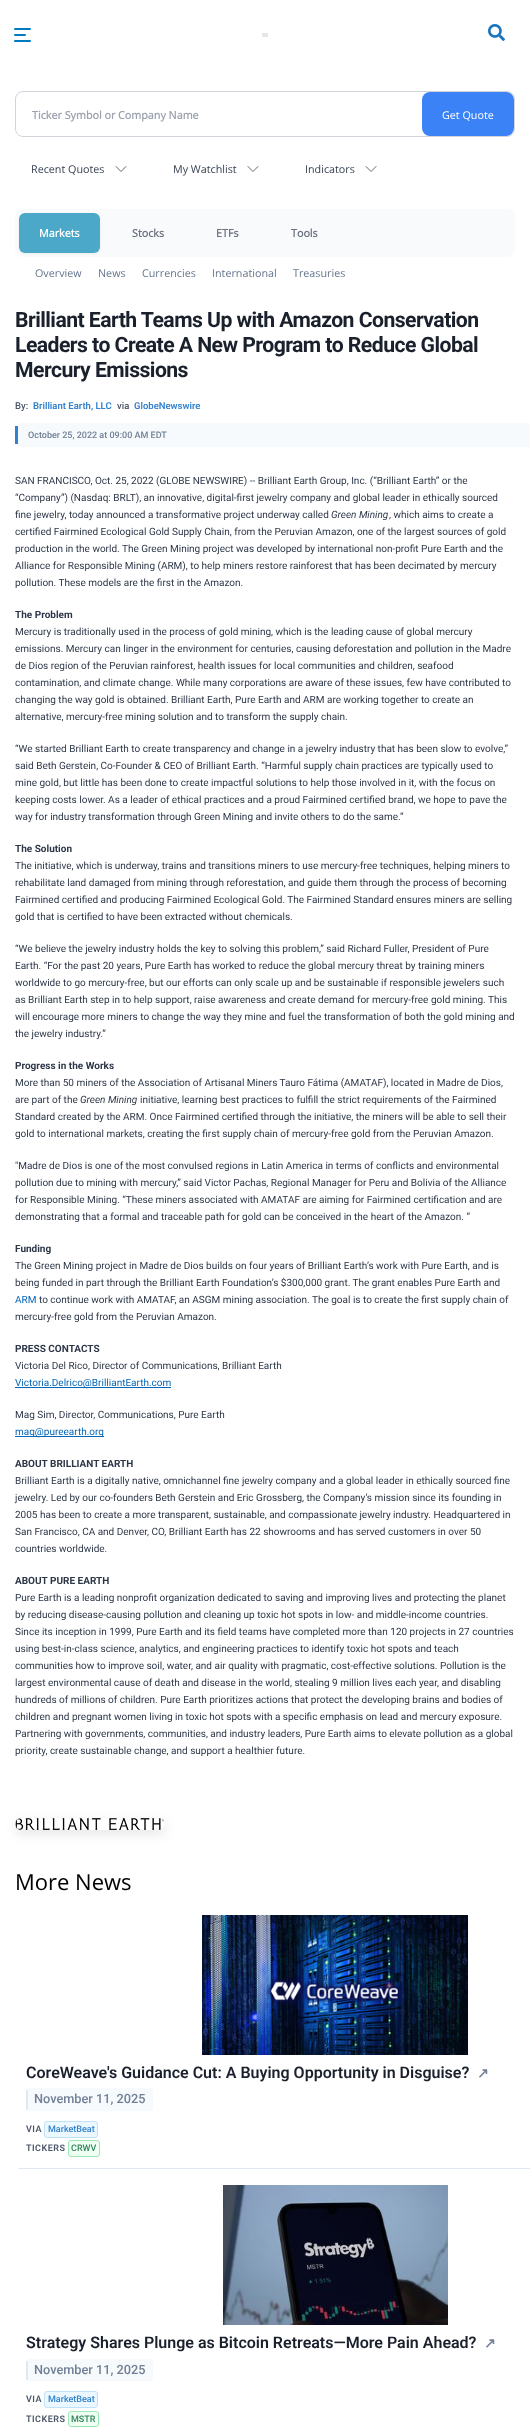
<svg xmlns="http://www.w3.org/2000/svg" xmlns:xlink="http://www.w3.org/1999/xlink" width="530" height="2434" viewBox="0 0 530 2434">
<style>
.cls-1{font:bold 10.75px Open Sans;fill:#9ca3af}
.cls-2{font:10.75px Open Sans;fill:#ffffff}
.cls-3{font:10.75px Open Sans;fill:#374151}
.cls-4{font:bold 10.75px Open Sans;fill:#ffffff}
.cls-5{font:bold 10.75px Open Sans;fill:#6b7280}
.cls-6{font:10.75px Open Sans;fill:#64748b}
.cls-7{font:bold 21.2px Roboto;letter-spacing:-0.55px;fill:#1a202c}
.cls-8{font:500 9.5px Roboto;fill:#4a5568}
.cls-9{font:600 9.5px Roboto;fill:#3182ce}
.cls-10{font:500 9px Roboto;fill:#718096}
.cls-11{font:10px Roboto;fill:#2d3748}
.cls-12{font:italic 10px Roboto;fill:#2d3748}
.cls-13{font:bold 10px Roboto;fill:#2d3748}
.cls-14{font:10px Roboto;fill:#0466b6}
.cls-15{font:22px Open Sans;fill:#000000}
.cls-16{font:600 16px Roboto;fill:#1a202c}
.cls-17{font:bold 14px DejaVu Sans;fill:#718096}
.cls-18{font:500 12.75px Roboto;fill:#718096}
.cls-19{font:600 9px Roboto;letter-spacing:0.5px;fill:#4a5568}
.cls-20{font:500 9px Roboto;fill:#3182ce}
.cls-21{font:500 9px Roboto;fill:#2f855a}
</style>
<defs>
<clipPath id="clip1"><path d="M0 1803H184V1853H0ZM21 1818H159C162.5 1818 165 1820.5 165 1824C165 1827.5 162.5 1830 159 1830H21C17.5 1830 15 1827.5 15 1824C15 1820.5 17.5 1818 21 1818Z" clip-rule="evenodd"/></clipPath>
</defs>
<rect width="100%" height="100%" fill="#ffffff"/>
<rect fill="#007ac1" x="14" y="28" width="17" height="2" rx="1"/>
<rect fill="#007ac1" x="14" y="34" width="12" height="2" rx="1"/>
<rect fill="#007ac1" x="14" y="40" width="17" height="2" rx="1"/>
<rect fill="#e6e6e6" x="262" y="33" width="6" height="4"/>
<image xlink:href="image0.png" x="488" y="24" width="17" height="17"/>
<rect fill="none" stroke="#d1d5db" x="15.5" y="91.5" width="499" height="45" rx="7.5"/>
<rect fill="#3b82f6" x="422" y="92" width="92" height="44" rx="8"/>
<path fill="none" stroke="#666666" stroke-linecap="round" stroke-linejoin="round" d="M126 166.5L121 171.5L116 166.5"/>
<path fill="none" stroke="#666666" stroke-linecap="round" stroke-linejoin="round" d="M258 166.5L253 171.5L248 166.5"/>
<path fill="none" stroke="#666666" stroke-linecap="round" stroke-linejoin="round" d="M376 166.5L371 171.5L366 166.5"/>
<rect fill="#f8fafc" x="15" y="209" width="500" height="48" rx="8"/>
<rect fill="#000000" fill-opacity="0.05" filter="blur(1px)" x="19" y="214" width="81" height="40" rx="6"/>
<rect fill="#4ca8c8" x="19" y="213" width="81" height="40" rx="6"/>
<rect fill="#f7fafc" x="15" y="423" width="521" height="24" rx="6"/>
<rect fill="#3182ce" x="15" y="426" width="3" height="18"/>
<rect fill="#0466b6" x="15" y="1387" width="156" height="1"/>
<rect fill="#0466b6" x="15" y="1436" width="89" height="1"/>
<g clip-path="url(#clip1)">
<rect fill="#000000" fill-opacity="0.1" filter="blur(6px)" x="15" y="1822" width="150" height="12" rx="6"/>
</g>
<image xlink:href="image1.png" x="15" y="1818" width="149" height="12"/>
<rect fill="#e2e8f0" x="18" y="2168" width="512" height="1"/>
<image xlink:href="image2.png" x="202" y="1915" width="266" height="140"/>
<rect fill="#f7fafc" x="26" y="2088" width="127" height="23" rx="3"/>
<rect fill="#e2e8f0" x="26" y="2090" width="2" height="20"/>
<rect fill="#ebf8ff" stroke="#bee3f8" x="44.5" y="2121.5" width="53" height="16" rx="2.5"/>
<rect fill="#f0fff4" stroke="#9ae6b4" x="68.5" y="2140.5" width="31" height="16" rx="2.5"/>
<image xlink:href="image3.png" x="223" y="2185" width="225" height="140"/>
<rect fill="#f7fafc" x="26" y="2359" width="127" height="22" rx="3"/>
<rect fill="#e2e8f0" x="26" y="2361" width="2" height="19"/>
<rect fill="#ebf8ff" stroke="#bee3f8" x="44.5" y="2391.5" width="53" height="16" rx="2.5"/>
<rect fill="#f0fff4" stroke="#9ae6b4" x="68.5" y="2411.5" width="30" height="15" rx="2.5"/>
<text class="cls-1" x="32" y="119">Ticker Symbol or Company Name</text>
<text class="cls-2" x="442" y="119">Get Quote</text>
<text class="cls-3" x="31" y="173">Recent Quotes</text>
<text class="cls-3" x="173" y="173">My Watchlist</text>
<text class="cls-3" x="305" y="173">Indicators</text>
<text class="cls-4" x="39" y="237">Markets</text>
<text class="cls-5" x="132" y="237">Stocks</text>
<text class="cls-5" x="216" y="237">ETFs</text>
<text class="cls-5" x="291" y="237">Tools</text>
<text class="cls-6" x="35" y="277">Overview</text>
<text class="cls-6" x="98" y="277">News</text>
<text class="cls-6" x="142" y="277">Currencies</text>
<text class="cls-6" x="212" y="277">International</text>
<text class="cls-6" x="293" y="277">Treasuries</text>
<text class="cls-7"><tspan x="15" y="327">Brilliant Earth Teams Up with Amazon Conservation</tspan><tspan x="15" y="352">Leaders to Create A New Program to Reduce Global</tspan><tspan x="15" y="377">Mercury Emissions</tspan></text>
<text class="cls-8" x="15" y="409">By:</text>
<text class="cls-9" x="33" y="409">Brilliant Earth, LLC</text>
<text class="cls-8" x="117" y="409">via</text>
<text class="cls-9" x="134" y="409">GlobeNewswire</text>
<text class="cls-10" x="28" y="438">October 25, 2022 at 09:00 AM EDT</text>
<text class="cls-11"><tspan x="15" y="484">SAN FRANCISCO, Oct. 25, 2022 (GLOBE NEWSWIRE) -- Brilliant Earth Group, Inc. (“Brilliant Earth” or the</tspan><tspan x="15" y="501">“Company”) (Nasdaq: BRLT), an innovative, digital-first jewelry company and global leader in ethically sourced</tspan><tspan x="15" y="518">fine jewelry, today announced a transformative project underway called</tspan></text>
<text class="cls-12" x="331" y="518">Green Mining</text>
<text class="cls-11" x="389" y="518">, which aims to create a</text>
<text class="cls-11"><tspan x="15" y="535">certified Fairmined Ecological Gold Supply Chain, from the Peruvian Amazon, one of the largest sources of gold</tspan><tspan x="15" y="552">production in the world. The Green Mining project was developed by international non-profit Pure Earth and the</tspan><tspan x="15" y="569">Alliance for Responsible Mining (ARM), to help miners restore rainforest that has been decimated by mercury</tspan><tspan x="15" y="586">pollution. These models are the first in the Amazon.</tspan></text>
<text class="cls-13" x="15" y="618">The Problem</text>
<text class="cls-11"><tspan x="15" y="635">Mercury is traditionally used in the process of gold mining, which is the leading cause of global mercury</tspan><tspan x="15" y="652">emissions. Mercury can linger in the environment for centuries, causing deforestation and pollution in the Madre</tspan><tspan x="15" y="669">de Dios region of the Peruvian rainforest, health issues for local communities and children, seafood</tspan><tspan x="15" y="686">contamination, and climate change. While many corporations are aware of these issues, few have contributed to</tspan><tspan x="15" y="703">changing the way gold is obtained. Brilliant Earth, Pure Earth and ARM are working together to create an</tspan><tspan x="15" y="720">alternative, mercury-free mining solution and to transform the supply chain.</tspan></text>
<text class="cls-11"><tspan x="15" y="752">“We started Brilliant Earth to create transparency and change in a jewelry industry that has been slow to evolve,”</tspan><tspan x="15" y="769">said Beth Gerstein, Co-Founder &amp; CEO of Brilliant Earth. “Harmful supply chain practices are typically used to</tspan><tspan x="15" y="786">mine gold, but little has been done to create impactful solutions to help those involved in it, with the focus on</tspan><tspan x="15" y="803">keeping costs lower. As a leader of ethical practices and a proud Fairmined certified brand, we hope to pave the</tspan><tspan x="15" y="820">way for industry transformation through Green Mining and invite others to do the same.”</tspan></text>
<text class="cls-13" x="15" y="852">The Solution</text>
<text class="cls-11"><tspan x="15" y="869">The initiative, which is underway, trains and transitions miners to use mercury-free techniques, helping miners to</tspan><tspan x="15" y="886">rehabilitate land damaged from mining through reforestation, and guide them through the process of becoming</tspan><tspan x="15" y="903">Fairmined certified and producing Fairmined Ecological Gold. The Fairmined Standard ensures miners are selling</tspan><tspan x="15" y="920">gold that is certified to have been extracted without chemicals.</tspan></text>
<text class="cls-11"><tspan x="15" y="952">“We believe the jewelry industry holds the key to solving this problem,” said Richard Fuller, President of Pure</tspan><tspan x="15" y="969">Earth. “For the past 20 years, Pure Earth has worked to reduce the global mercury threat by training miners</tspan><tspan x="15" y="986">worldwide to go mercury-free, but our efforts can only scale up and be sustainable if responsible jewelers such</tspan><tspan x="15" y="1003">as Brilliant Earth step in to help support, raise awareness and create demand for mercury-free gold mining. This</tspan><tspan x="15" y="1020">will encourage more miners to change the way they mine and fuel the transformation of both the gold mining and</tspan><tspan x="15" y="1037">the jewelry industry.”</tspan></text>
<text class="cls-13" x="15" y="1069">Progress in the Works</text>
<text class="cls-11"><tspan x="15" y="1086">More than 50 miners of the Association of Artisanal Miners Tauro Fátima (AMATAF), located in Madre de Dios,</tspan><tspan x="15" y="1103">are part of the</tspan></text>
<text class="cls-12" x="80" y="1103">Green Mining</text>
<text class="cls-11" x="140" y="1103">initiative, learning best practices to fulfill the strict requirements of the Fairmined</text>
<text class="cls-11"><tspan x="15" y="1120">Standard created by the ARM. Once Fairmined certified through the initiative, the miners will be able to sell their</tspan><tspan x="15" y="1137">gold to international markets, creating the first supply chain of mercury-free gold from the Peruvian Amazon.</tspan></text>
<text class="cls-11"><tspan x="15" y="1169">"Madre de Dios is one of the most convulsed regions in Latin America in terms of conflicts and environmental</tspan><tspan x="15" y="1186">pollution due to mining with mercury,” said Victor Pachas, Regional Manager for Peru and Bolivia of the Alliance</tspan><tspan x="15" y="1203">for Responsible Mining. “These miners associated with AMATAF are aiming for Fairmined certification and are</tspan><tspan x="15" y="1220">demonstrating that a formal and traceable path for gold can be conceived in the heart of the Amazon. ”</tspan></text>
<text class="cls-13" x="15" y="1252">Funding</text>
<text class="cls-11"><tspan x="15" y="1269">The Green Mining project in Madre de Dios builds on four years of Brilliant Earth’s work with Pure Earth, and is</tspan><tspan x="15" y="1286">being funded in part through the Brilliant Earth Foundation’s $300,000 grant. The grant enables Pure Earth and</tspan></text>
<text class="cls-14" x="15" y="1303">ARM</text>
<text class="cls-11" x="39" y="1303">to continue work with AMATAF, an ASGM mining association. The goal is to create the first supply chain of</text>
<text class="cls-11" x="15" y="1320">mercury-free gold from the Peruvian Amazon.</text>
<text class="cls-13" x="15" y="1352">PRESS CONTACTS</text>
<text class="cls-11" x="15" y="1369">Victoria Del Rico, Director of Communications, Brilliant Earth</text>
<text class="cls-14" x="15" y="1386">Victoria.Delrico@BrilliantEarth.com</text>
<text class="cls-11" x="15" y="1418">Mag Sim, Director, Communications, Pure Earth</text>
<text class="cls-14" x="15" y="1435">mag@pureearth.org</text>
<text class="cls-13" x="15" y="1467">ABOUT BRILLIANT EARTH</text>
<text class="cls-11"><tspan x="15" y="1484">Brilliant Earth is a digitally native, omnichannel fine jewelry company and a global leader in ethically sourced fine</tspan><tspan x="15" y="1501">jewelry. Led by our co-founders Beth Gerstein and Eric Grossberg, the Company’s mission since its founding in</tspan><tspan x="15" y="1518">2005 has been to create a more transparent, sustainable, and compassionate jewelry industry. Headquartered in</tspan><tspan x="15" y="1535">San Francisco, CA and Denver, CO, Brilliant Earth has 22 showrooms and has served customers in over 50</tspan><tspan x="15" y="1552">countries worldwide.</tspan></text>
<text class="cls-13" x="15" y="1584">ABOUT PURE EARTH</text>
<text class="cls-11"><tspan x="15" y="1601">Pure Earth is a leading nonprofit organization dedicated to saving and improving lives and protecting the planet</tspan><tspan x="15" y="1618">by reducing disease-causing pollution and cleaning up toxic hot spots in low- and middle-income countries.</tspan><tspan x="15" y="1635">Since its inception in 1999, Pure Earth and its field teams have completed more than 120 projects in 27 countries</tspan><tspan x="15" y="1652">using best-in-class science, analytics, and engineering practices to identify toxic hot spots and teach</tspan><tspan x="15" y="1669">communities how to improve soil, water, and air quality with pragmatic, cost-effective solutions. Pollution is the</tspan><tspan x="15" y="1686">largest environmental cause of death and disease in the world, stealing 9 million lives each year, and disabling</tspan><tspan x="15" y="1703">hundreds of millions of children. Pure Earth prioritizes actions that protect the developing brains and bodies of</tspan><tspan x="15" y="1720">children and pregnant women living in toxic hot spots with a specific emphasis on lead and mercury exposure.</tspan><tspan x="15" y="1737">Partnering with governments, communities, and industry leaders, Pure Earth aims to elevate pollution as a global</tspan><tspan x="15" y="1754">priority, create sustainable change, and support a healthier future.</tspan></text>
<text class="cls-15" x="15" y="1890">More News</text>
<text class="cls-16" x="26" y="2078">CoreWeave's Guidance Cut: A Buying Opportunity in Disguise?</text>
<text class="cls-17" x="477" y="2078">↗</text>
<text class="cls-18" x="34" y="2103">November 11, 2025</text>
<text class="cls-19" x="26" y="2132">VIA</text>
<text class="cls-20" x="48" y="2132">MarketBeat</text>
<text class="cls-19" x="26" y="2151">TICKERS</text>
<text class="cls-21" x="71" y="2151">CRWV</text>
<text class="cls-16" x="26" y="2348">Strategy Shares Plunge as Bitcoin Retreats—More Pain Ahead?</text>
<text class="cls-17" x="484" y="2348">↗</text>
<text class="cls-18" x="34" y="2374">November 11, 2025</text>
<text class="cls-19" x="26" y="2402">VIA</text>
<text class="cls-20" x="48" y="2402">MarketBeat</text>
<text class="cls-19" x="26" y="2422">TICKERS</text>
<text class="cls-21" x="71" y="2422">MSTR</text>
</svg>
